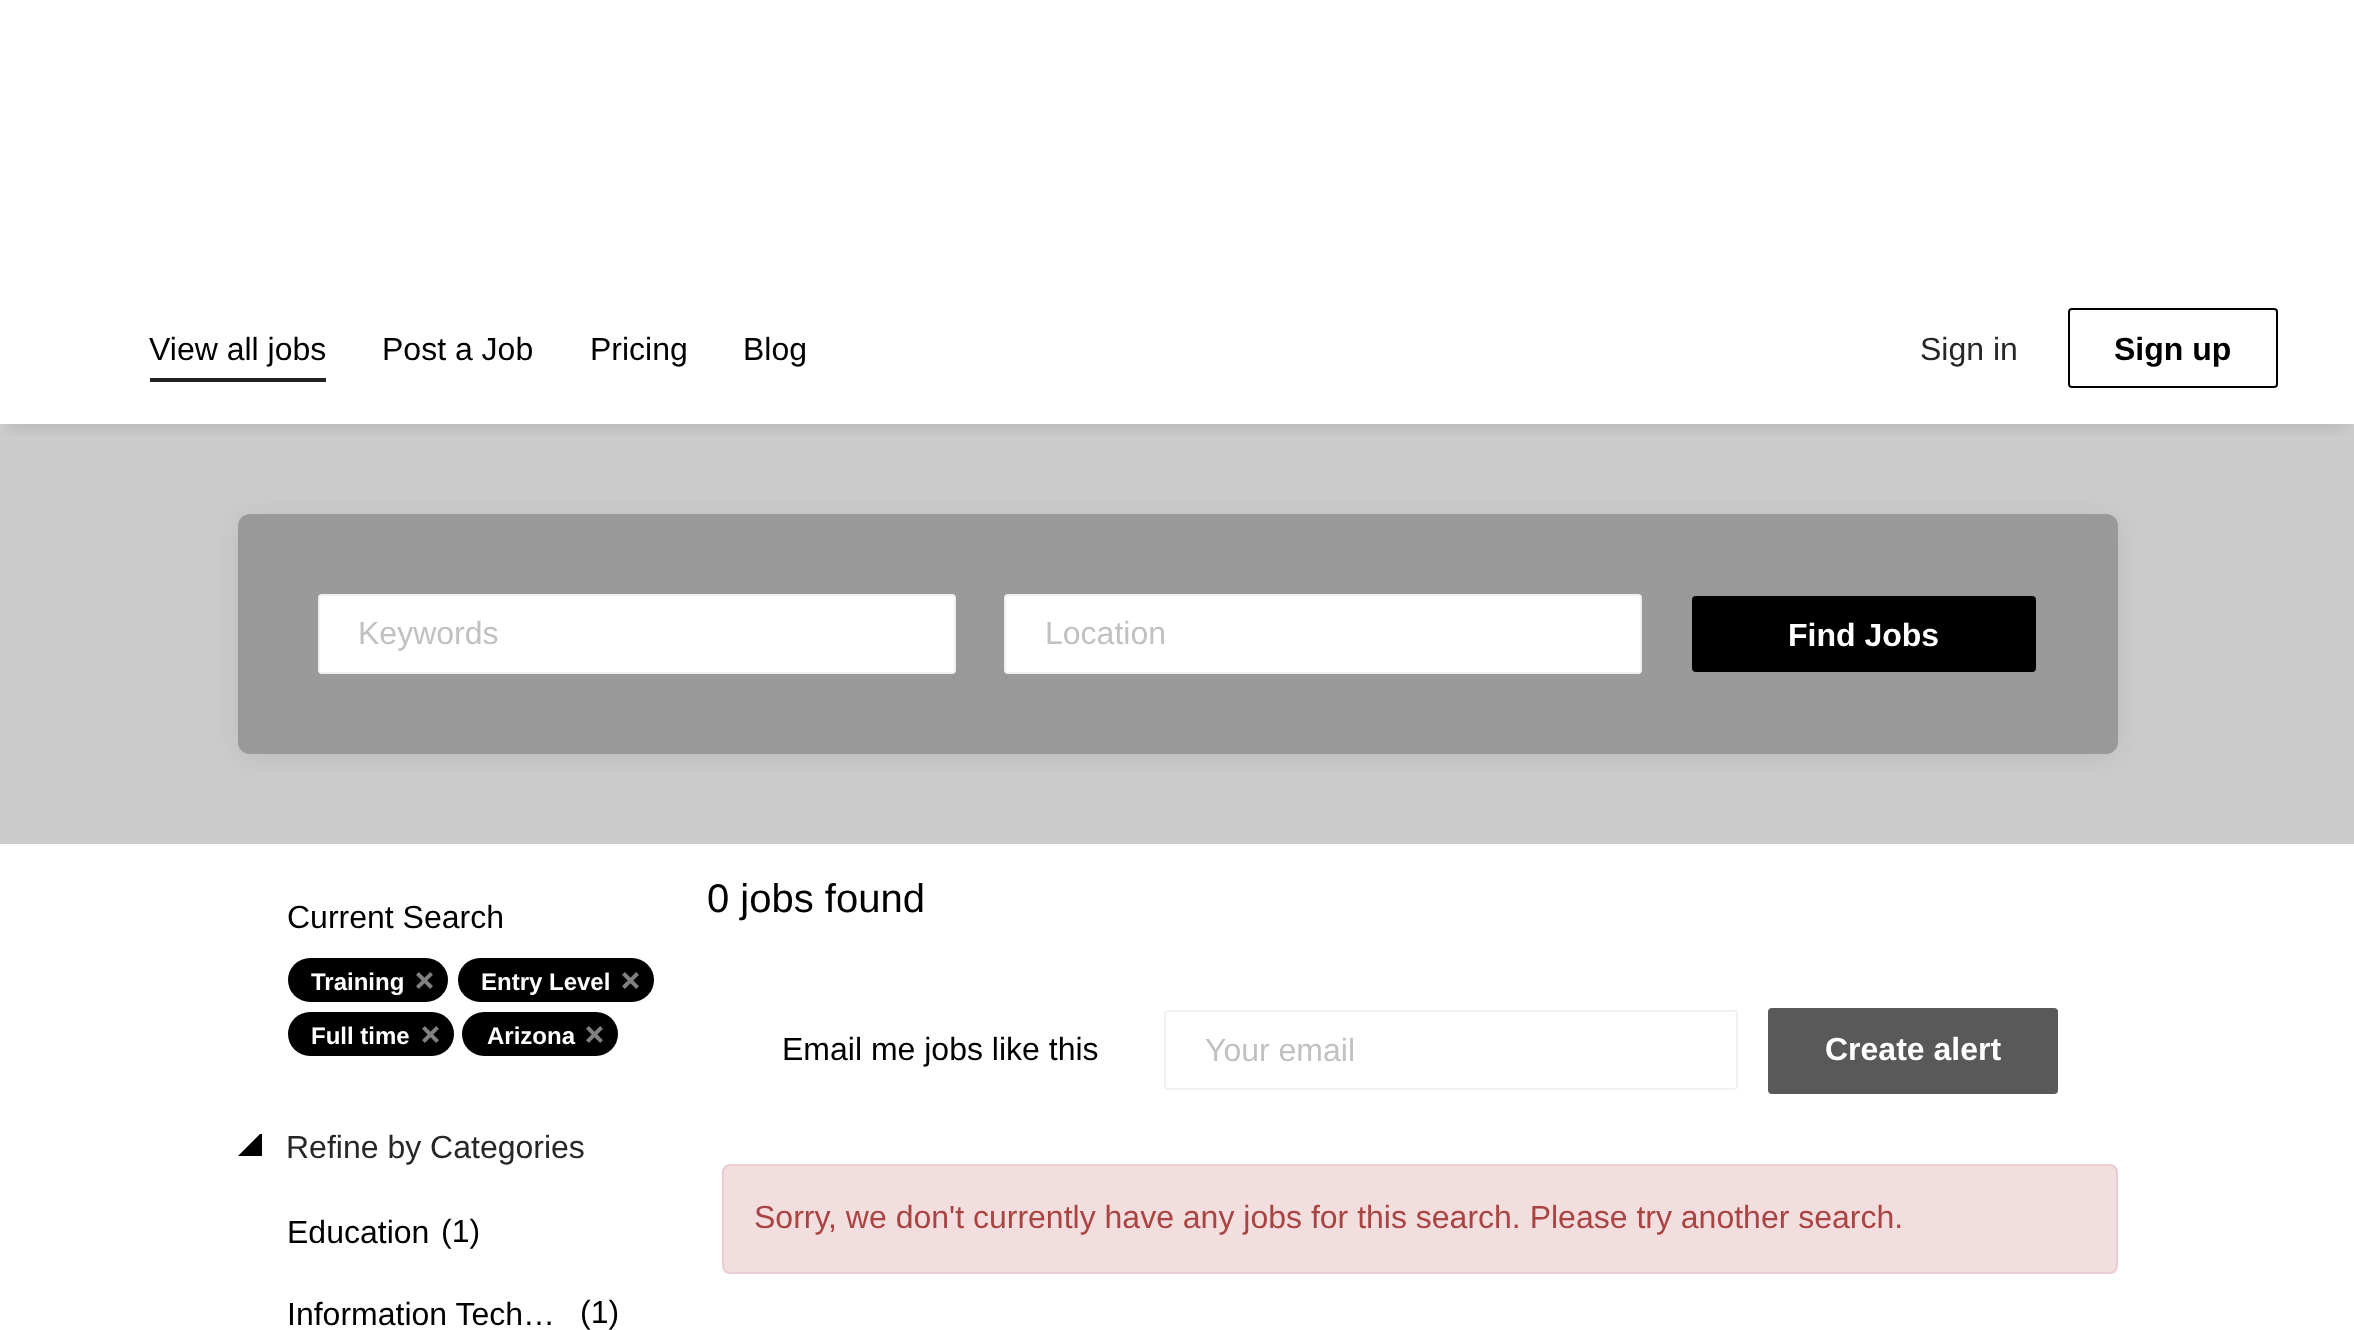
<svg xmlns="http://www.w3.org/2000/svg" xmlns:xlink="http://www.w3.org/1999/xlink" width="2354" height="1330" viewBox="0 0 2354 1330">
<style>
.cls-1{font:32px Liberation Sans;fill:#000000}
.cls-2{font:32px Liberation Sans;fill:#272727}
.cls-3{font:bold 32px Liberation Sans;fill:#000000}
.cls-4{font:32px Liberation Sans;fill:#c1c1c1}
.cls-5{font:bold 32px Liberation Sans;fill:#ffffff}
.cls-6{font:bold 24px Liberation Sans;fill:#ffffff}
.cls-7{font:40px Liberation Sans;fill:#000000}
.cls-8{font:32px Liberation Sans;fill:#a94442}
</style>
<defs>
<clipPath id="clip1"><rect x="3" y="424" width="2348" height="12"/></clipPath>
</defs>
<rect width="100%" height="100%" fill="#ffffff"/>
<rect fill="#cccccc" x="0" y="424" width="2354" height="420"/>
<g clip-path="url(#clip1)">
<rect fill="#000000" fill-opacity="0.12" filter="blur(10px)" x="8" y="288" width="2338" height="138"/>
</g>
<rect fill="#222222" x="150" y="378" width="176" height="4"/>
<rect fill="none" stroke="#000000" stroke-width="2" x="2069" y="309" width="208" height="78" rx="3"/>
<rect fill="#000000" fill-opacity="0.08" filter="blur(14px)" x="238" y="518" width="1880" height="240" rx="12"/>
<rect fill="#999999" x="238" y="514" width="1880" height="240" rx="12"/>
<rect fill="#ffffff" stroke="#f0f0f0" stroke-width="2" x="319" y="595" width="636" height="78" rx="3"/>
<rect fill="#ffffff" stroke="#f0f0f0" stroke-width="2" x="1005" y="595" width="636" height="78" rx="3"/>
<rect fill="#000000" stroke="#000000" stroke-width="2" x="1693" y="597" width="342" height="74" rx="3"/>
<rect fill="#000000" x="288" y="958" width="160" height="44" rx="22"/>
<image xlink:href="image0.png" x="416" y="972" width="17" height="17"/>
<rect fill="#000000" x="458" y="958" width="196" height="44" rx="22"/>
<image xlink:href="image0.png" x="622" y="972" width="17" height="17"/>
<rect fill="#000000" x="288" y="1012" width="166" height="44" rx="22"/>
<image xlink:href="image0.png" x="422" y="1026" width="17" height="17"/>
<rect fill="#000000" x="462" y="1012" width="156" height="44" rx="22"/>
<image xlink:href="image0.png" x="586" y="1026" width="17" height="17"/>
<path fill="#000000" d="M262 1156H238L260 1134H262Z"/>
<rect fill="none" stroke="#f0f0f0" stroke-width="2" x="1165" y="1011" width="572" height="78" rx="3"/>
<rect fill="#595959" stroke="#595959" stroke-width="2" x="1769" y="1009" width="288" height="84" rx="3"/>
<rect fill="#f2dede" stroke="#ebccd1" stroke-width="2" x="723" y="1165" width="1394" height="108" rx="7"/>
<text class="cls-1" x="149" y="360">View all jobs</text>
<text class="cls-1" x="382" y="360">Post a Job</text>
<text class="cls-1" x="590" y="360">Pricing</text>
<text class="cls-1" x="743" y="360">Blog</text>
<text class="cls-2" x="1920" y="360">Sign in</text>
<text class="cls-3" x="2114" y="360">Sign up</text>
<text class="cls-4" x="358" y="644">Keywords</text>
<text class="cls-4" x="1045" y="644">Location</text>
<text class="cls-5" x="1788" y="646">Find Jobs</text>
<text class="cls-1" x="287" y="928">Current Search</text>
<text class="cls-6" x="311" y="990">Training</text>
<text class="cls-6" x="481" y="990">Entry Level</text>
<text class="cls-6" x="311" y="1044">Full time</text>
<text class="cls-6" x="487" y="1044">Arizona</text>
<text class="cls-2" x="286" y="1158">Refine by Categories</text>
<text class="cls-1" x="287" y="1243">Education</text>
<text class="cls-1" x="441" y="1242">(1)</text>
<text class="cls-1" x="287" y="1325">Information Tech…</text>
<text class="cls-1" x="580" y="1323">(1)</text>
<text class="cls-7" x="707" y="912">0 jobs found</text>
<text class="cls-1" x="782" y="1060">Email me jobs like this</text>
<text class="cls-4" x="1205" y="1061">Your email</text>
<text class="cls-5" x="1825" y="1060">Create alert</text>
<text class="cls-8" x="754" y="1228">Sorry, we don't currently have any jobs for this search. Please try another search.</text>
</svg>
